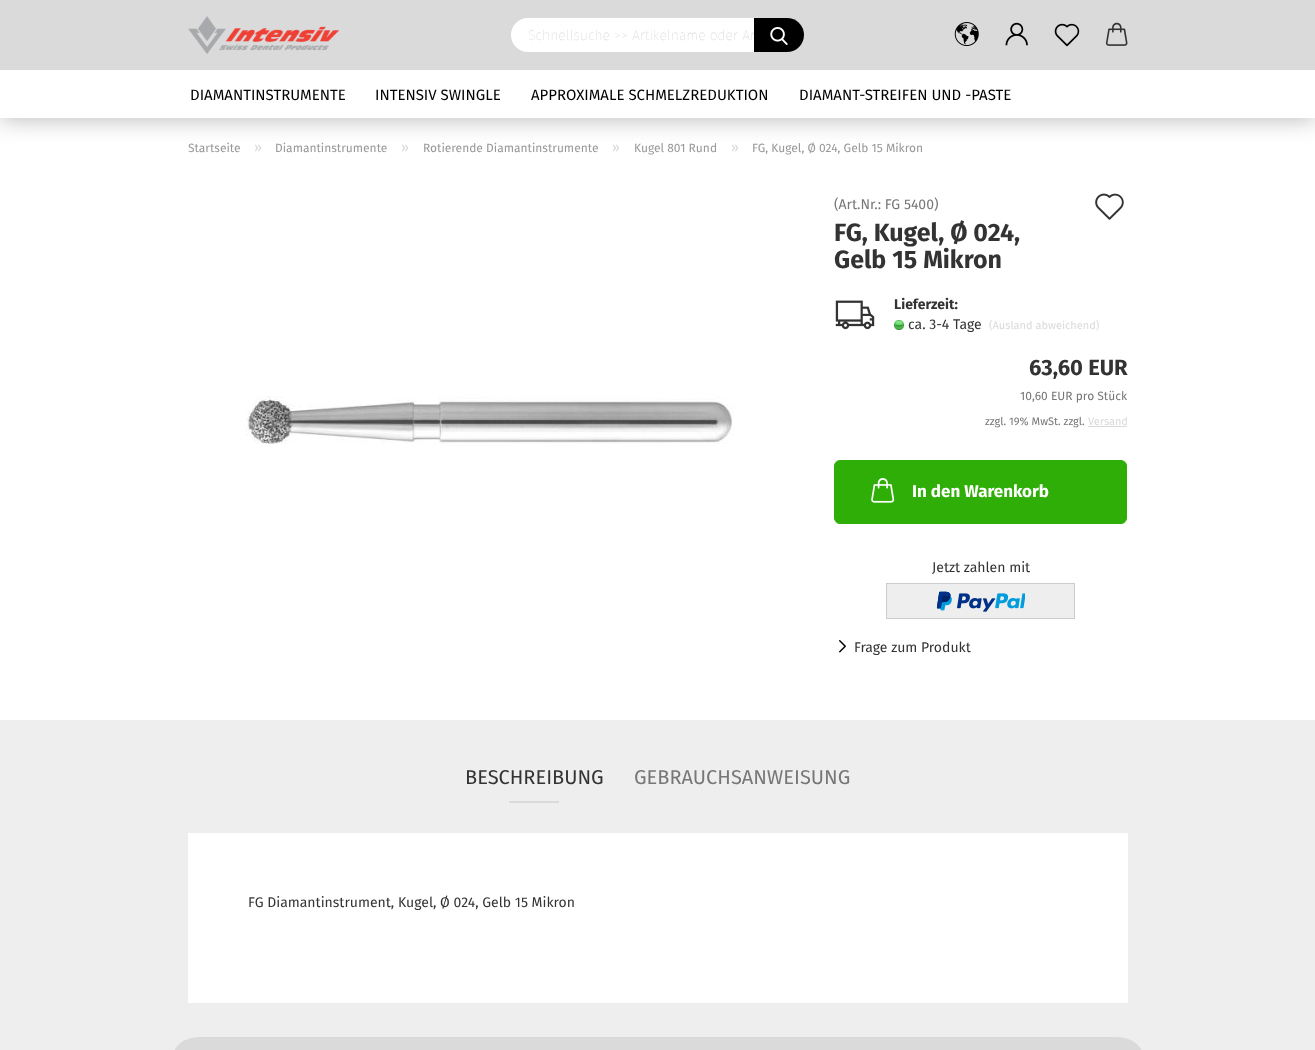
<svg xmlns="http://www.w3.org/2000/svg" xmlns:xlink="http://www.w3.org/1999/xlink" width="1315" height="1050" viewBox="0 0 1315 1050">
<style>
.cls-1{font:200 14px Fira Sans;fill:#cccccc}
.cls-2{font:15px Fira Sans;fill:#000000}
.cls-3{font:12px Fira Sans;fill:#999999}
.cls-4{font:14px Fira Sans;fill:#dadada}
.cls-5{font:14px Fira Sans;fill:#777777}
.cls-6{font:bold 25px Fira Sans;fill:#333333}
.cls-7{font:bold 14px Fira Sans;fill:#333333}
.cls-8{font:14px Fira Sans;fill:#333333}
.cls-9{font:11px Fira Sans;fill:#dadada}
.cls-10{font:bold 22px Fira Sans;fill:#333333}
.cls-11{font:12px Fira Sans;fill:#777777}
.cls-12{font:11px Fira Sans;fill:#777777}
.cls-13{font:bold 17px Fira Sans;fill:#ffffff}
.cls-14{font:20px Fira Sans;fill:#333333}
.cls-15{font:20px Fira Sans;fill:#777777}
</style>
<rect width="100%" height="100%" fill="#ffffff"/>
<rect fill="#000000" fill-opacity="0.3" filter="blur(12.5px)" x="0" y="0" width="1315" height="118"/>
<rect fill="#dadada" x="0" y="0" width="1315" height="70"/>
<image xlink:href="image0.png" x="188" y="16" width="151" height="38"/>
<rect fill="#ffffff" stroke="#ffffff" stroke-width="2" x="512" y="19" width="291" height="32" rx="16"/>
<image xlink:href="image2.png" x="954" y="22" width="25" height="24"/>
<image xlink:href="image3.png" x="1005" y="22" width="23" height="24"/>
<image xlink:href="image4.png" x="1054" y="23" width="26" height="24"/>
<image xlink:href="image5.png" x="1105" y="22" width="23" height="24"/>
<rect fill="#ffffff" x="0" y="70" width="1315" height="48"/>
<image xlink:href="image6.png" x="246" y="396" width="488" height="48"/>
<image xlink:href="image7.png" x="1095" y="193" width="29" height="27"/>
<image xlink:href="image8.png" x="835" y="300" width="40" height="30"/>
<image xlink:href="image9.png" x="894" y="320" width="10" height="10"/>
<rect fill="#dadada" x="1088" y="426" width="39" height="1"/>
<rect fill="#2eae06" stroke="#2eae06" x="834.5" y="460.5" width="292" height="63" rx="5.5"/>
<image xlink:href="image10.png" x="871" y="478" width="24" height="25"/>
<rect fill="#eeeeee" stroke="#cccccc" x="886.5" y="583.5" width="188" height="35"/>
<image xlink:href="image11.png" x="936" y="591" width="16" height="20"/>
<image xlink:href="image12.png" x="957" y="593" width="68" height="19"/>
<image xlink:href="image13.png" x="839" y="640" width="7" height="13"/>
<rect fill="#eeeeee" x="0" y="720" width="1315" height="330"/>
<rect fill="#dadada" x="509" y="801" width="50" height="2"/>
<rect fill="#ffffff" x="188" y="833" width="940" height="170"/>
<rect fill="#dadada" x="173" y="1037" width="970" height="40" rx="26.5"/>
<text class="cls-1" x="528" y="40">Schnellsuche &gt;&gt; Artikelname oder Ar</text>
<path fill="#000000" d="M754 18H787C796.5 18 804 25.5 804 35C804 44.5 796.5 52 787 52H754Z"/>
<image xlink:href="image1.png" x="770" y="27" width="18" height="18"/>
<text class="cls-2" x="190" y="100">DIAMANTINSTRUMENTE</text>
<text class="cls-2" x="375" y="100">INTENSIV SWINGLE</text>
<text class="cls-2" x="531" y="100">APPROXIMALE SCHMELZREDUKTION</text>
<text class="cls-2" x="799" y="100">DIAMANT-STREIFEN UND -PASTE</text>
<text class="cls-3" x="188" y="152">Startseite</text>
<text class="cls-4" x="254" y="152">»</text>
<text class="cls-3" x="275" y="152">Diamantinstrumente</text>
<text class="cls-4" x="401" y="152">»</text>
<text class="cls-3" x="423" y="152">Rotierende Diamantinstrumente</text>
<text class="cls-4" x="612" y="152">»</text>
<text class="cls-3" x="634" y="152">Kugel 801 Rund</text>
<text class="cls-4" x="731" y="152">»</text>
<text class="cls-3" x="752" y="152">FG, Kugel, Ø 024, Gelb 15 Mikron</text>
<text class="cls-5" x="834" y="209">(Art.Nr.: FG 5400)</text>
<text class="cls-6"><tspan x="834" y="241">FG, Kugel, Ø 024,</tspan><tspan x="834" y="268">Gelb 15 Mikron</tspan></text>
<text class="cls-7" x="894" y="309">Lieferzeit:</text>
<text class="cls-8" x="908" y="329">ca. 3-4 Tage</text>
<text class="cls-9" x="989" y="329">(Ausland abweichend)</text>
<text class="cls-10" x="1029" y="375">63,60 EUR</text>
<text class="cls-11" x="1020" y="400">10,60 EUR pro Stück</text>
<text class="cls-12" x="985" y="425">zzgl. 19% MwSt. zzgl.</text>
<text class="cls-9" x="1088" y="425">Versand</text>
<text class="cls-13" x="912" y="497">In den Warenkorb</text>
<text class="cls-8" x="932" y="572">Jetzt zahlen mit</text>
<text class="cls-8" x="854" y="652">Frage zum Produkt</text>
<text class="cls-14" x="465" y="784">BESCHREIBUNG</text>
<text class="cls-15" x="634" y="784">GEBRAUCHSANWEISUNG</text>
<text class="cls-8" x="248" y="907">FG Diamantinstrument, Kugel, Ø 024, Gelb 15 Mikron</text>
</svg>
